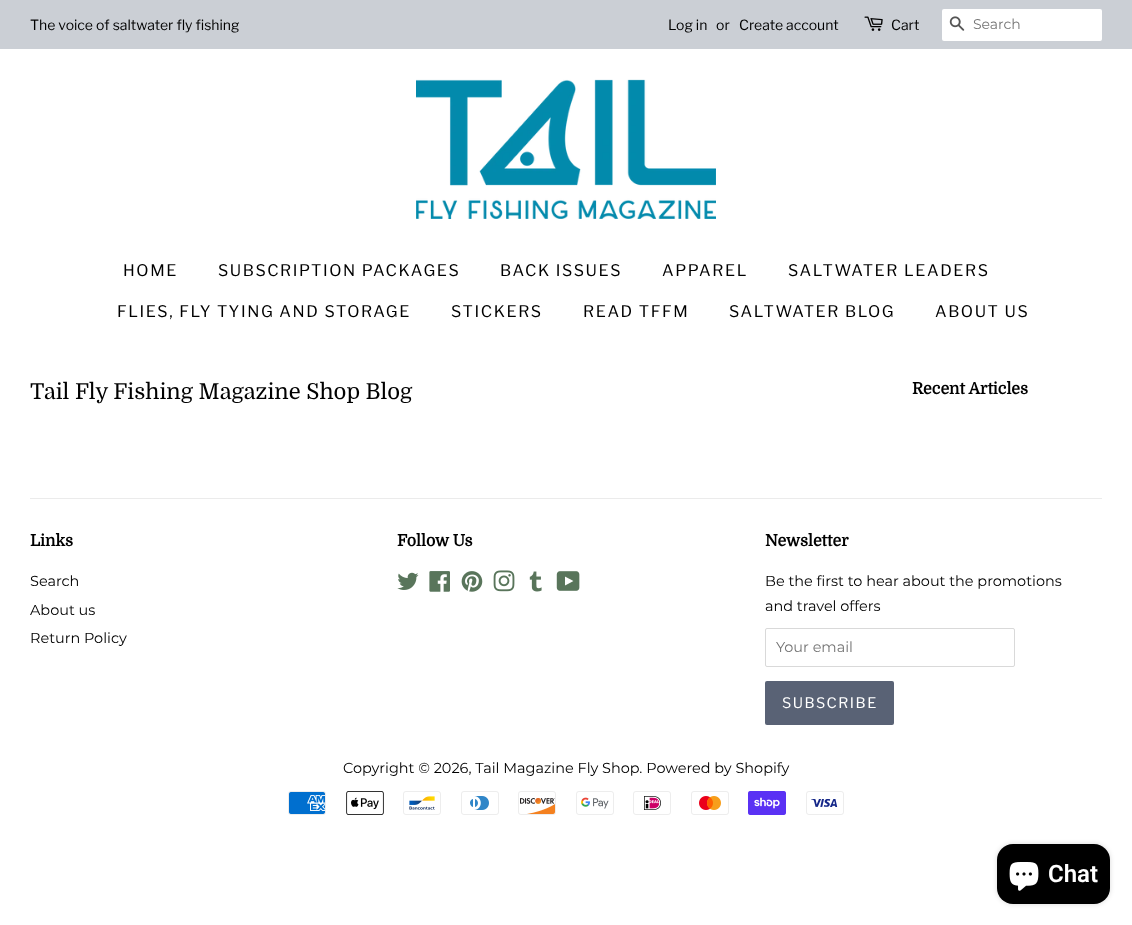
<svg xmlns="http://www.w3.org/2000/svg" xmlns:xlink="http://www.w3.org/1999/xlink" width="1132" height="925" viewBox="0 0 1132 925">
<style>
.cls-1{font:14px Libre Franklin;fill:#000000}
.cls-2{font:14px Montserrat;fill:#757575}
.cls-3{font:16px Libre Franklin;letter-spacing:1.6px;fill:#000000}
.cls-4{font:22px Domine;fill:#000000}
.cls-5{font:bold 16px Domine;fill:#000000}
.cls-6{font:14.45px Montserrat;fill:#000000}
.cls-7{font:14.45px Montserrat;fill:#757575}
.cls-8{font:14.45px Libre Franklin;letter-spacing:1.5px;fill:#ffffff}
.cls-9{font:600 24px Roboto;fill:#ffffff}
</style>
<rect width="100%" height="100%" fill="#ffffff"/>
<rect fill="#cbcfd5" x="0" y="0" width="1132" height="49"/>
<image xlink:href="image0.png" x="864" y="16" width="19" height="15"/>
<rect fill="#ffffff" x="942" y="9" width="160" height="32" rx="2"/>
<image xlink:href="image1.png" x="949" y="16" width="16" height="15"/>
<image xlink:href="image2.png" x="416" y="79" width="300" height="140"/>
<rect fill="#ebebeb" x="30" y="498" width="1072" height="1"/>
<image xlink:href="image3.png" x="397" y="572" width="22" height="18"/>
<image xlink:href="image4.png" x="429" y="571" width="21" height="21"/>
<image xlink:href="image5.png" x="461" y="571" width="22" height="21"/>
<image xlink:href="image6.png" x="493" y="570" width="22" height="22"/>
<image xlink:href="image7.png" x="529" y="571" width="13" height="21"/>
<image xlink:href="image8.png" x="556" y="571" width="24" height="20"/>
<rect fill="none" stroke="#d9d9d9" x="765.5" y="628.5" width="249" height="38" rx="1.5"/>
<rect fill="#596275" x="765" y="681" width="129" height="44" rx="2"/>
<image xlink:href="image9.png" x="288" y="791" width="38" height="24"/>
<image xlink:href="image10.png" x="346" y="791" width="38" height="24"/>
<image xlink:href="image11.png" x="403" y="791" width="38" height="24"/>
<image xlink:href="image12.png" x="461" y="791" width="38" height="24"/>
<image xlink:href="image13.png" x="518" y="791" width="38" height="24"/>
<image xlink:href="image14.png" x="576" y="791" width="38" height="24"/>
<image xlink:href="image15.png" x="633" y="791" width="38" height="24"/>
<image xlink:href="image16.png" x="691" y="791" width="38" height="24"/>
<image xlink:href="image17.png" x="748" y="791" width="38" height="24"/>
<image xlink:href="image18.png" x="806" y="791" width="38" height="24"/>
<rect fill="#000000" fill-opacity="0.15" filter="blur(2.5px)" x="997" y="844" width="113" height="60" rx="16"/>
<rect fill="#000000" x="997" y="844" width="113" height="60" rx="16"/>
<image xlink:href="image19.png" x="1009" y="862" width="30" height="29"/>
<text class="cls-1" x="30" y="30">The voice of saltwater fly fishing</text>
<text class="cls-1" x="668" y="30">Log in</text>
<text class="cls-1" x="716" y="30">or</text>
<text class="cls-1" x="739" y="30">Create account</text>
<text class="cls-1" x="891" y="30">Cart</text>
<text class="cls-2" x="973" y="29">Search</text>
<text class="cls-3" x="123" y="276">HOME</text>
<text class="cls-3" x="218" y="276">SUBSCRIPTION PACKAGES</text>
<text class="cls-3" x="500" y="276">BACK ISSUES</text>
<text class="cls-3" x="662" y="276">APPAREL</text>
<text class="cls-3" x="788" y="276">SALTWATER LEADERS</text>
<text class="cls-3" x="117" y="317">FLIES, FLY TYING AND STORAGE</text>
<text class="cls-3" x="451" y="317">STICKERS</text>
<text class="cls-3" x="583" y="317">READ TFFM</text>
<text class="cls-3" x="729" y="317">SALTWATER BLOG</text>
<text class="cls-3" x="935" y="317">ABOUT US</text>
<text class="cls-4" x="30" y="399">Tail Fly Fishing Magazine Shop Blog</text>
<text class="cls-5" x="912" y="394">Recent Articles</text>
<text class="cls-5" x="30" y="546">Links</text>
<text class="cls-6" x="30" y="586">Search</text>
<text class="cls-6"><tspan x="30" y="615">About us</tspan><tspan x="30" y="643">Return Policy</tspan></text>
<text class="cls-5" x="397" y="546">Follow Us</text>
<text class="cls-5" x="765" y="546">Newsletter</text>
<text class="cls-6"><tspan x="765" y="586">Be the first to hear about the promotions</tspan><tspan x="765" y="611">and travel offers</tspan></text>
<text class="cls-7" x="776" y="652">Your email</text>
<text class="cls-8" x="782" y="708">SUBSCRIBE</text>
<text class="cls-6" x="343" y="773">Copyright © 2026, Tail Magazine Fly Shop. Powered by Shopify</text>
<text class="cls-9" x="1048" y="882">Chat</text>
</svg>
